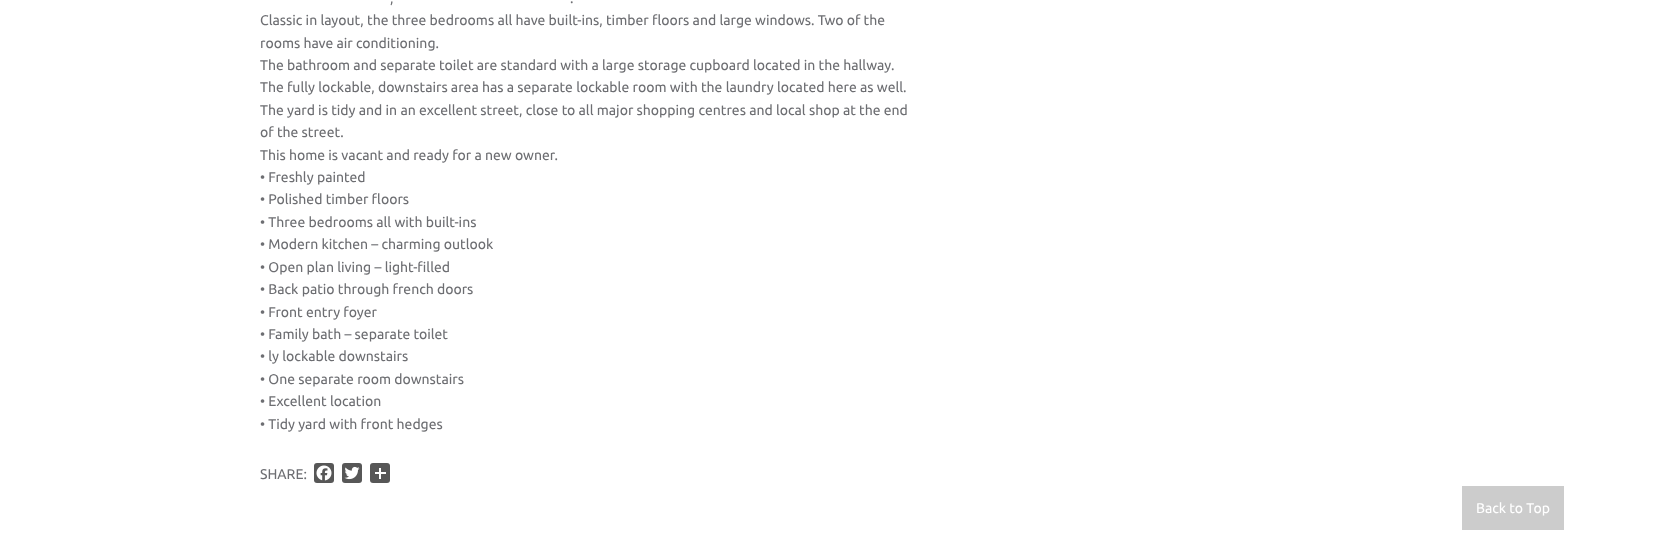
<svg xmlns="http://www.w3.org/2000/svg" xmlns:xlink="http://www.w3.org/1999/xlink" width="1669" height="547" viewBox="0 0 1669 547">
<style>
.cls-1{font:14px Ubuntu;fill:#6d6e72}
.cls-2{font:14px Ubuntu;fill:#ffffff}
</style>
<rect width="100%" height="100%" fill="#ffffff"/>
<rect fill="#575757" x="314" y="463" width="20" height="20" rx="3"/>
<image xlink:href="image0.png" x="316" y="465" width="16" height="16"/>
<rect fill="#575757" x="342" y="463" width="20" height="20" rx="3"/>
<image xlink:href="image1.png" x="344" y="466" width="16" height="14"/>
<rect fill="#575757" x="370" y="463" width="20" height="20" rx="3"/>
<rect fill="#ffffff" x="379" y="468" width="2" height="11"/>
<rect fill="#ffffff" x="375" y="472" width="11" height="2"/>
<rect fill="#cccccc" x="1462" y="486" width="102" height="44"/>
<text class="cls-1" x="390" y="3">,</text>
<text class="cls-1" x="570" y="3">.</text>
<text class="cls-1"><tspan x="260" y="25">Classic in layout, the three bedrooms all have built-ins, timber floors and large windows. Two of the</tspan><tspan x="260" y="48">rooms have air conditioning.</tspan><tspan x="260" y="70">The bathroom and separate toilet are standard with a large storage cupboard located in the hallway.</tspan><tspan x="260" y="92">The fully lockable, downstairs area has a separate lockable room with the laundry located here as well.</tspan><tspan x="260" y="115">The yard is tidy and in an excellent street, close to all major shopping centres and local shop at the end</tspan><tspan x="260" y="137">of the street.</tspan><tspan x="260" y="160">This home is vacant and ready for a new owner.</tspan><tspan x="260" y="182">• Freshly painted</tspan><tspan x="260" y="204">• Polished timber floors</tspan><tspan x="260" y="227">• Three bedrooms all with built-ins</tspan><tspan x="260" y="249">• Modern kitchen – charming outlook</tspan><tspan x="260" y="272">• Open plan living – light-filled</tspan><tspan x="260" y="294">• Back patio through french doors</tspan><tspan x="260" y="317">• Front entry foyer</tspan><tspan x="260" y="339">• Family bath – separate toilet</tspan><tspan x="260" y="361">• ly lockable downstairs</tspan><tspan x="260" y="384">• One separate room downstairs</tspan><tspan x="260" y="406">• Excellent location</tspan><tspan x="260" y="429">• Tidy yard with front hedges</tspan></text>
<text class="cls-1" x="260" y="479">SHARE:</text>
<text class="cls-2" x="1476" y="513">Back to Top</text>
</svg>
